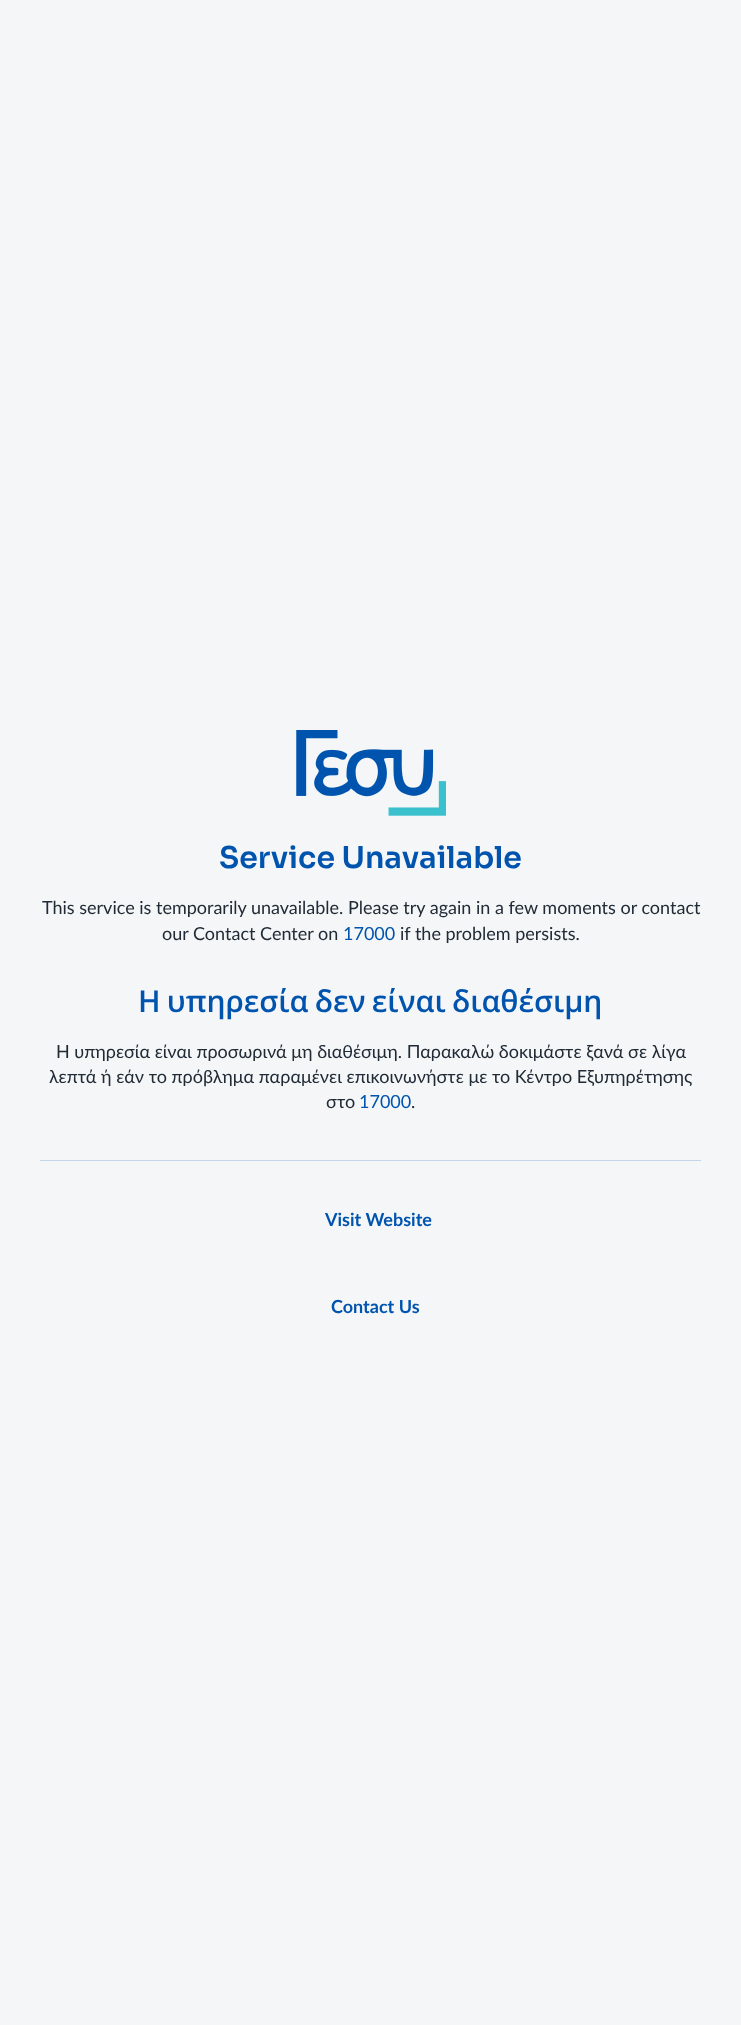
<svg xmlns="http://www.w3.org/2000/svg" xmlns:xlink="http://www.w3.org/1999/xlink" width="741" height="2025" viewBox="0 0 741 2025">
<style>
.cls-1{font:600 30px Sora;fill:#0054ae}
.cls-2{font:18px Lato;fill:#212b36}
.cls-3{font:18px Lato;fill:#0054ae}
.cls-4{font:600 30px Open Sans;fill:#0054ae}
.cls-5{font:bold 18px Lato;fill:#0054ae}
</style>
<rect width="100%" height="100%" fill="#f4f6f8"/>
<image xlink:href="image0.png" x="296" y="730" width="150" height="86"/>
<rect fill="#c3d6e9" x="40" y="1160" width="661" height="1"/>
<text class="cls-1" x="219" y="868">Service Unavailable</text>
<text class="cls-2" x="42" y="914">This service is temporarily unavailable. Please try again in a few moments or contact</text>
<text class="cls-2" x="162" y="940">our Contact Center on</text>
<text class="cls-3" x="343" y="940">17000</text>
<text class="cls-2" x="400" y="940">if the problem persists.</text>
<text class="cls-4" x="138" y="1012" word-spacing="-1.5">Η υπηρεσία δεν είναι διαθέσιμη</text>
<text class="cls-2" x="56" y="1058">Η υπηρεσία είναι προσωρινά μη διαθέσιμη. Παρακαλώ δοκιμάστε ξανά σε λίγα</text>
<text class="cls-2" x="49" y="1083">λεπτά ή εάν το πρόβλημα παραμένει επικοινωνήστε με το Κέντρο Εξυπηρέτησης</text>
<text class="cls-2" x="326" y="1108">στο</text>
<text class="cls-3" x="359" y="1108">17000</text>
<text class="cls-2" x="411" y="1108">.</text>
<text class="cls-5" x="325" y="1226">Visit Website</text>
<text class="cls-5" x="331" y="1313">Contact Us</text>
</svg>
